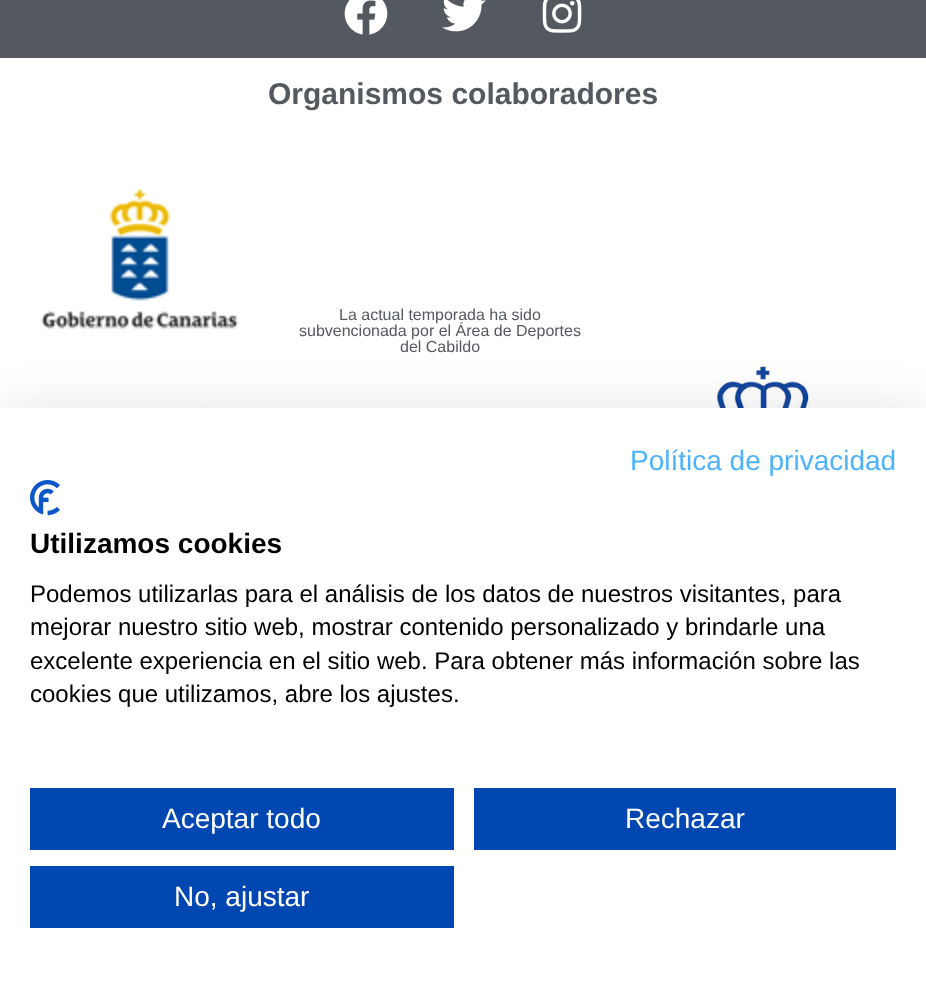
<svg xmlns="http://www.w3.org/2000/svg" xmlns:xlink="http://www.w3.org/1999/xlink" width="926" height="981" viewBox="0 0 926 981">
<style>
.cls-1{font:bold 30px Liberation Sans;fill:#54595f}
.cls-2{font:16px Liberation Sans;fill:#54595f}
.cls-3{font:28px Liberation Sans;fill:#4cb2fe}
.cls-4{font:bold 28px Liberation Sans;fill:#000000}
.cls-5{font:24px Liberation Sans;fill:#000000}
.cls-6{font:28px Liberation Sans;fill:#ffffff}
</style>
<rect width="100%" height="100%" fill="#ffffff"/>
<rect fill="#54595f" x="0" y="0" width="926" height="58"/>
<image xlink:href="image0.png" x="344" y="0" width="44" height="35"/>
<image xlink:href="image1.png" x="442" y="0" width="44" height="32"/>
<image xlink:href="image2.png" x="542" y="0" width="40" height="33"/>
<image xlink:href="image3.png" x="41" y="188" width="198" height="141"/>
<image xlink:href="image4.png" x="31" y="407" width="239" height="1"/>
<image xlink:href="image5.png" x="715" y="363" width="96" height="45"/>
<rect fill="#000000" fill-opacity="0.1" filter="blur(24px)" x="0" y="408" width="926" height="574"/>
<rect fill="#ffffff" x="0" y="408" width="926" height="573"/>
<image xlink:href="image6.png" x="30" y="480" width="30" height="36"/>
<rect fill="#0047b2" x="30" y="788" width="424" height="62"/>
<rect fill="#0047b2" x="474" y="788" width="422" height="62"/>
<rect fill="#0047b2" x="30" y="866" width="424" height="62"/>
<text class="cls-1" x="268" y="104">Organismos colaboradores</text>
<text class="cls-2" x="339" y="320">La actual temporada ha sido</text>
<text class="cls-2" x="299" y="336">subvencionada por el Área de Deportes</text>
<text class="cls-2" x="400" y="352">del Cabildo</text>
<text class="cls-3" x="630" y="470">Política de privacidad</text>
<text class="cls-4" x="30" y="553">Utilizamos cookies</text>
<text class="cls-5"><tspan x="30" y="602">Podemos utilizarlas para el análisis de los datos de nuestros visitantes, para</tspan><tspan x="30" y="635">mejorar nuestro sitio web, mostrar contenido personalizado y brindarle una</tspan><tspan x="30" y="669">excelente experiencia en el sitio web. Para obtener más información sobre las</tspan><tspan x="30" y="702">cookies que utilizamos, abre los ajustes.</tspan></text>
<text class="cls-6" x="162" y="828">Aceptar todo</text>
<text class="cls-6" x="625" y="828">Rechazar</text>
<text class="cls-6" x="174" y="906">No, ajustar</text>
</svg>
